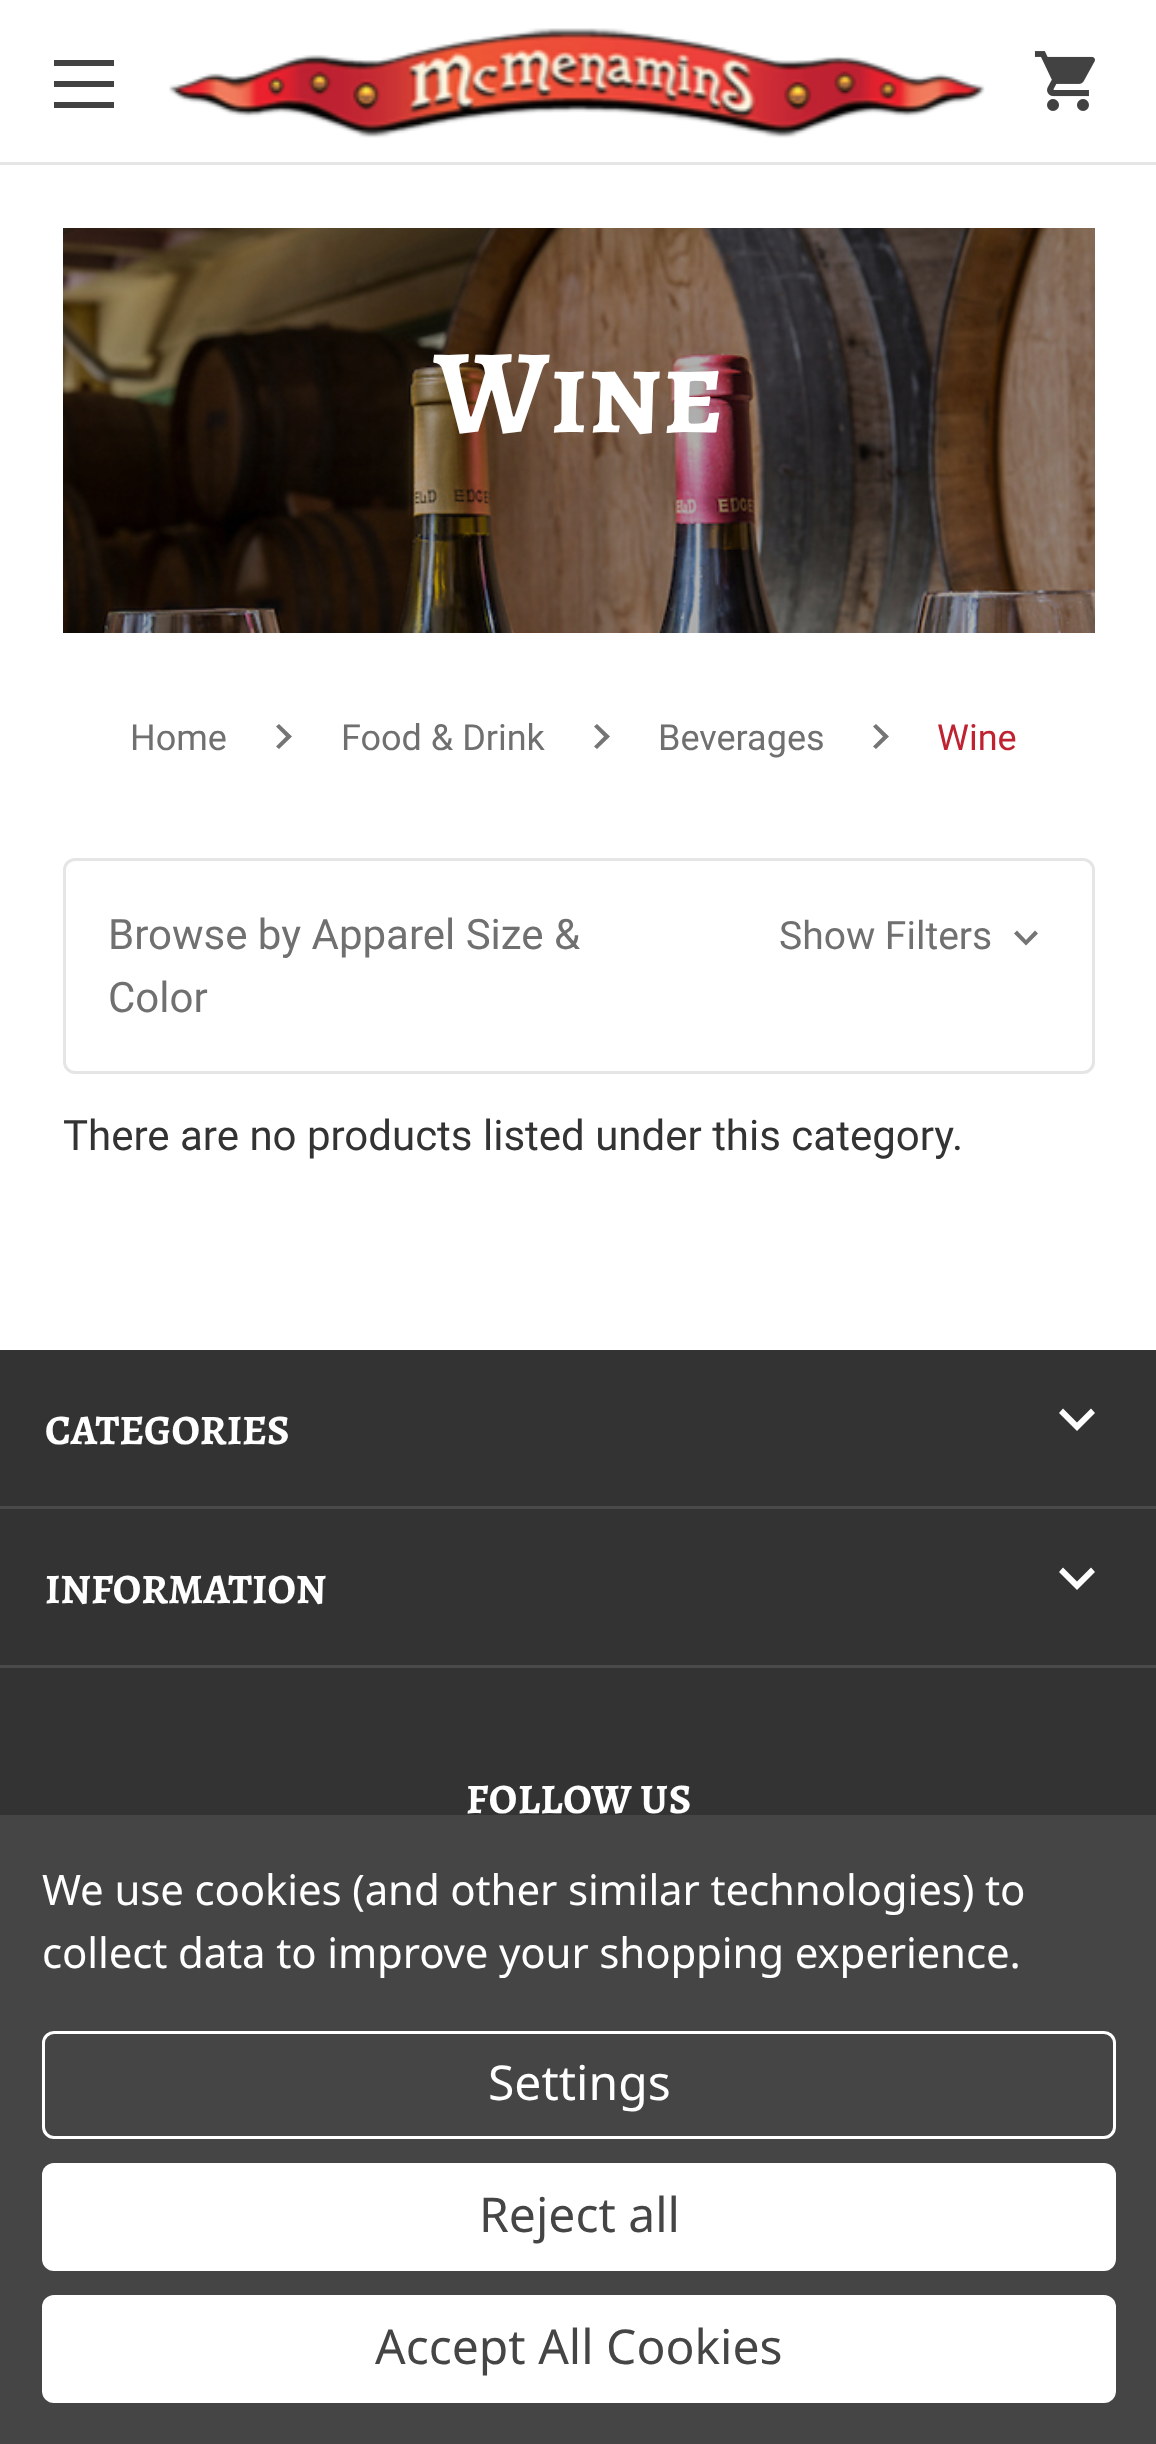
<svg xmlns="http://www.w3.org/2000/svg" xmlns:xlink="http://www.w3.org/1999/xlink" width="1156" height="2444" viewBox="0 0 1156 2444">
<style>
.cls-1{font:bold 120px Alegreya SC;fill:#ffffff}
.cls-2{font:36px Roboto;fill:#707070}
.cls-3{font:36px Roboto;fill:#bf2332}
.cls-4{font:42px Roboto;fill:#707070}
.cls-5{font:39px Roboto;fill:#707070}
.cls-6{font:42px Roboto;fill:#333333}
.cls-7{font:bold 42px Alegreya SC;fill:#ffffff}
.cls-8{font:bold 42px Alegreya SC;letter-spacing:0.75px;fill:#ffffff}
.cls-9{font:42px Noto Sans;letter-spacing:-0.15px;fill:#ffffff}
.cls-10{font:48px Noto Sans;fill:#ffffff}
.cls-11{font:48px Noto Sans;fill:#454545}
</style>
<rect width="100%" height="100%" fill="#ffffff"/>
<rect fill="#e5e5e5" x="0" y="162" width="1156" height="3"/>
<rect fill="#424242" x="54" y="81" width="60" height="6"/>
<rect fill="#424242" x="54" y="60" width="60" height="6"/>
<rect fill="#424242" x="54" y="102" width="60" height="6"/>
<image xlink:href="image0.png" x="169" y="28" width="816" height="110"/>
<image xlink:href="image1.png" x="1034" y="51" width="61" height="60"/>
<image xlink:href="image2.png" x="63" y="228" width="1032" height="405"/>
<path fill="#757575" d="M279 724L292 736.5L279 749L276 746.5L286 736.5L276 726.5Z"/>
<path fill="#757575" d="M597 724L610 736.5L597 749L594 746.5L604 736.5L594 726.5Z"/>
<path fill="#757575" d="M876 724L889 736.5L876 749L873 746.5L883 736.5L873 726.5Z"/>
<rect fill="none" stroke="#e5e5e5" stroke-width="3" x="64.5" y="859.5" width="1029" height="213" rx="10.5"/>
<path fill="#757575" d="M1017 930.5L1026 940L1035 930.5L1038 933.5L1026 945.5L1014 933.5Z"/>
<rect fill="#333333" x="0" y="1350" width="1156" height="465"/>
<rect fill="#4a4a4a" x="0" y="1506" width="1156" height="3"/>
<path fill="#ffffff" d="M1091 1408.5L1077 1422.5L1063 1408.5L1059 1413L1077 1431L1095 1413Z"/>
<rect fill="#4a4a4a" x="0" y="1665" width="1156" height="3"/>
<path fill="#ffffff" d="M1091 1567.5L1077 1581.5L1063 1567.5L1059 1572L1077 1590L1095 1572Z"/>
<rect fill="#454545" x="0" y="1815" width="1156" height="629"/>
<rect fill="none" stroke="#ffffff" stroke-width="3" x="43.5" y="2032.5" width="1071" height="105" rx="10.5"/>
<rect fill="#ffffff" x="42" y="2163" width="1074" height="108" rx="12"/>
<rect fill="#ffffff" x="42" y="2295" width="1074" height="108" rx="12"/>
<text class="cls-1" x="434" y="432">Wine</text>
<text class="cls-2" x="130" y="750">Home</text>
<text class="cls-2" x="341" y="750">Food &amp; Drink</text>
<text class="cls-2" x="658" y="750">Beverages</text>
<text class="cls-3" x="937" y="750">Wine</text>
<text class="cls-4"><tspan x="108" y="949">Browse by Apparel Size &amp;</tspan><tspan x="108" y="1012">Color</tspan></text>
<text class="cls-5" x="779" y="949">Show Filters</text>
<text class="cls-6" x="63" y="1150">There are no products listed under this category.</text>
<text class="cls-7" x="45" y="1444">CATEGORIES</text>
<text class="cls-7" x="45" y="1603">INFORMATION</text>
<text class="cls-8" x="466" y="1813">FOLLOW US</text>
<text class="cls-9"><tspan x="42" y="1905">We use cookies (and other similar technologies) to</tspan><tspan x="42" y="1968">collect data to improve your shopping experience.</tspan></text>
<text class="cls-10" x="488" y="2100">Settings</text>
<text class="cls-11" x="479" y="2232">Reject all</text>
<text class="cls-11" x="375" y="2364">Accept All Cookies</text>
</svg>
